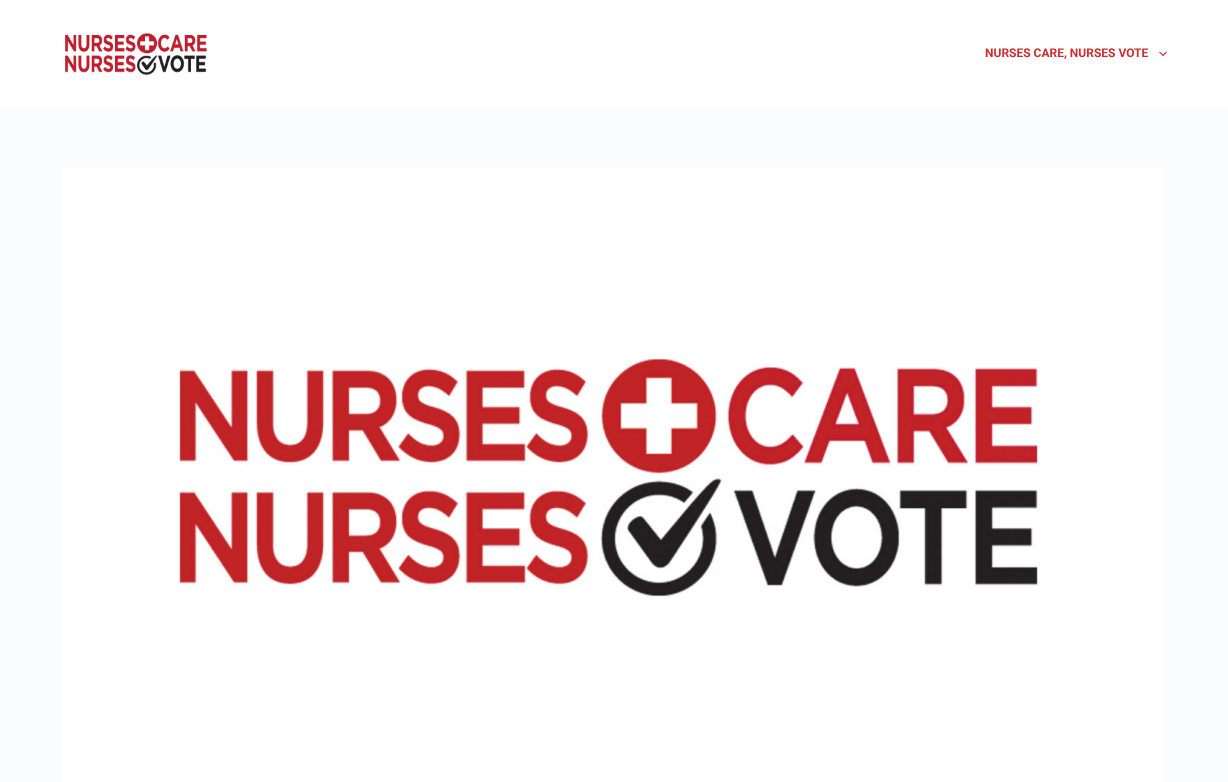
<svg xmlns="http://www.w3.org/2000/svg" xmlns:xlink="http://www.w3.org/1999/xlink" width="1228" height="782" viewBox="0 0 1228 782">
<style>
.cls-1{font:bold 12px Roboto;fill:#cc2e2e}
</style>
<rect width="100%" height="100%" fill="#fafbfc"/>
<rect fill="#ffffff" x="0" y="0" width="1228" height="108"/>
<image xlink:href="image0.png" x="65" y="33" width="142" height="42"/>
<image xlink:href="image1.png" x="1159" y="51" width="8" height="6"/>
<image xlink:href="image2.png" x="61" y="168" width="1106" height="614"/>
<text class="cls-1" x="985" y="57">NURSES CARE, NURSES VOTE</text>
</svg>
